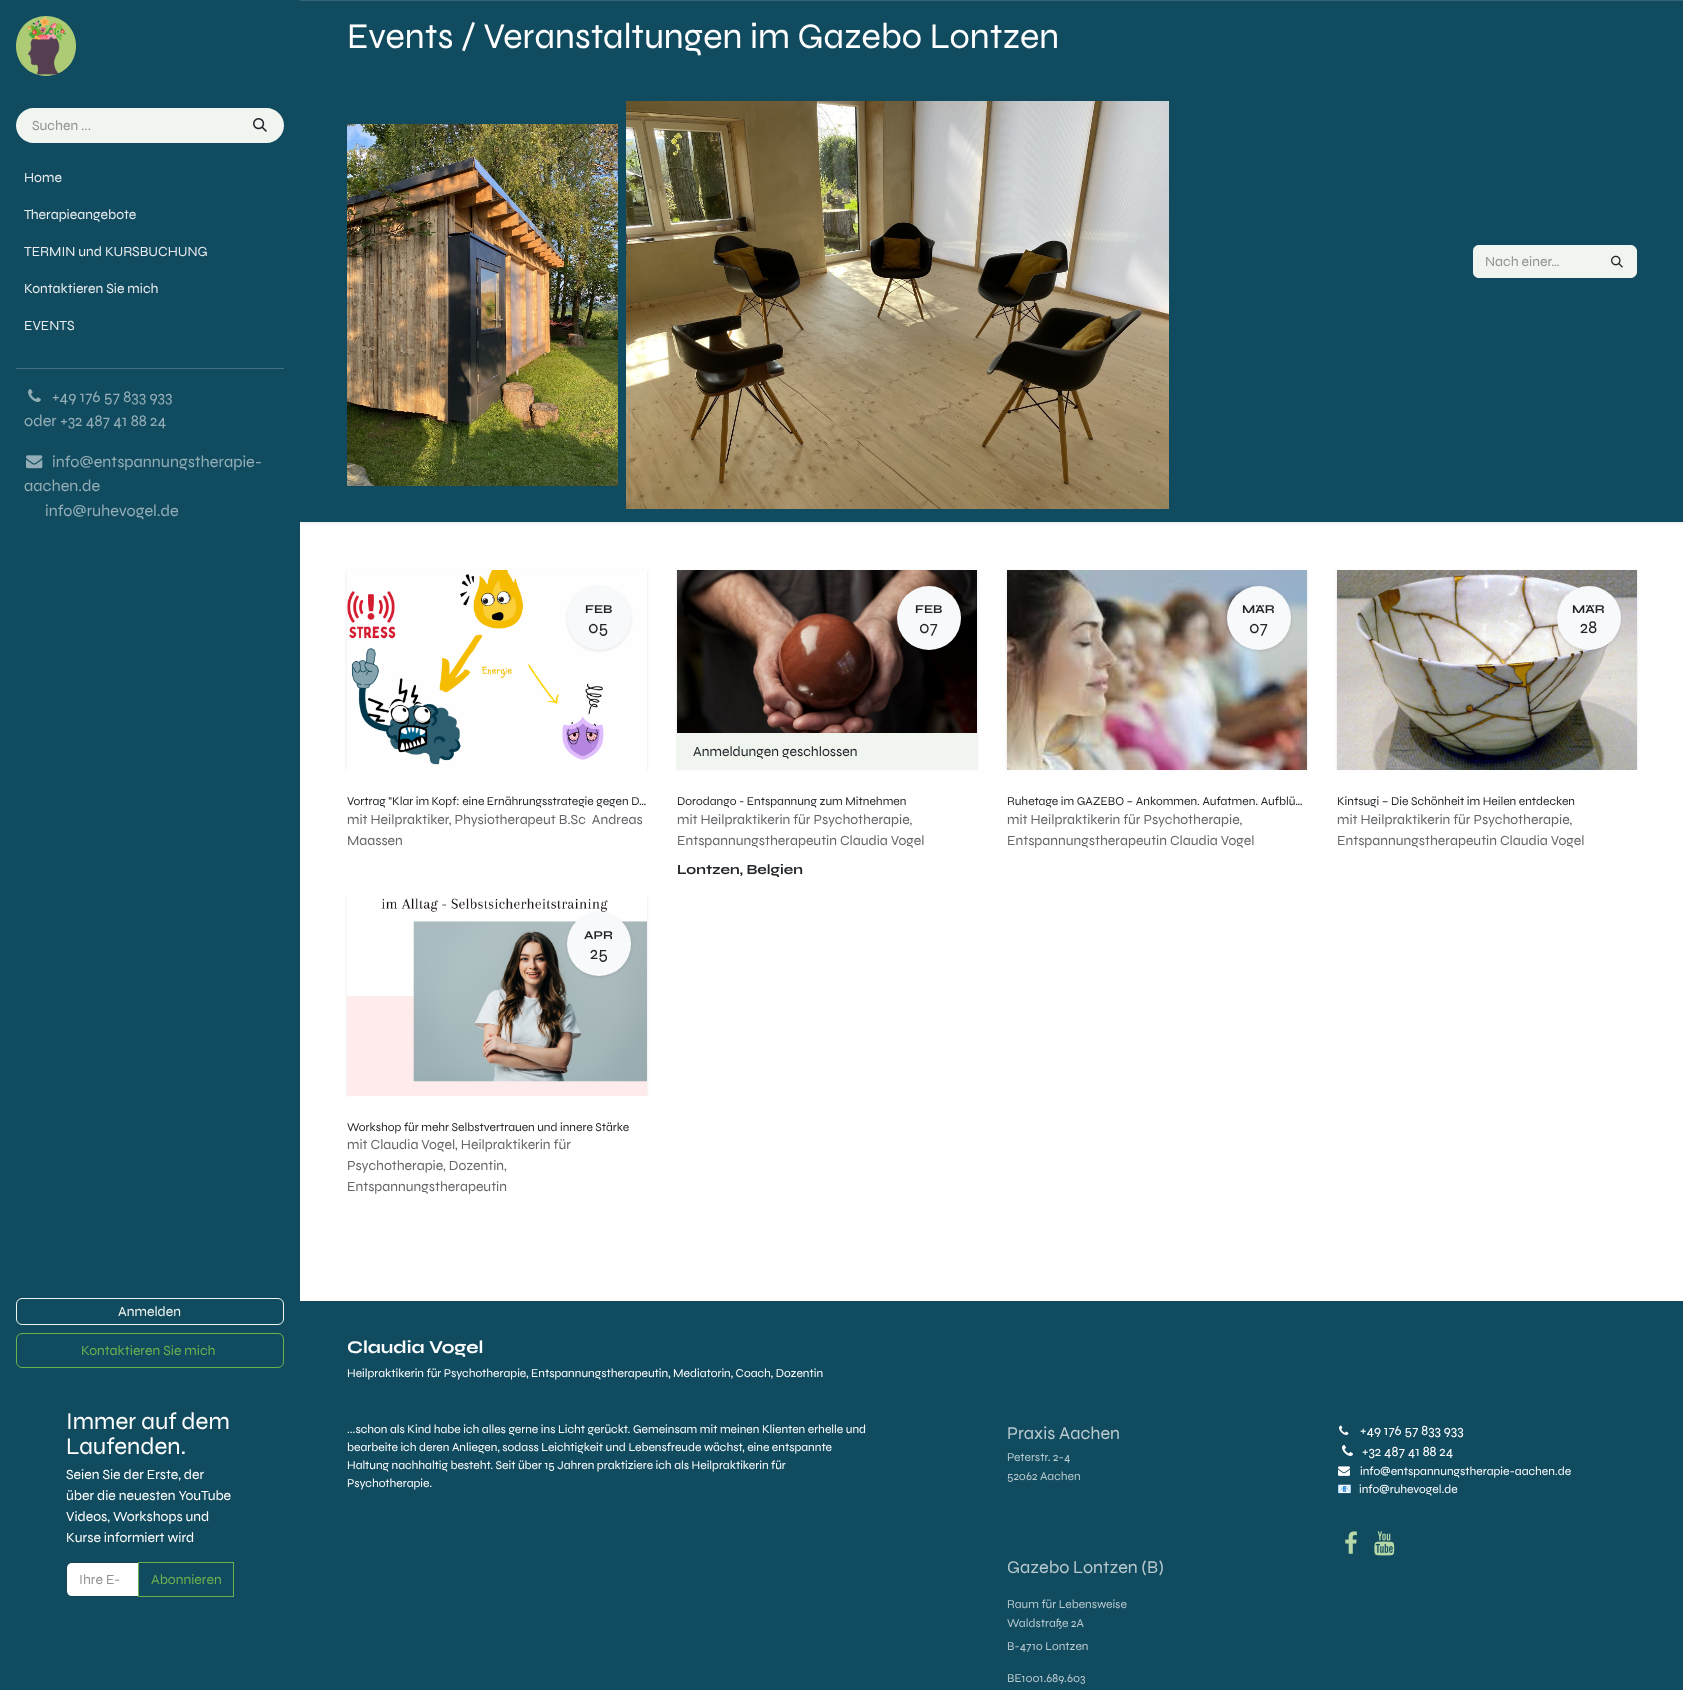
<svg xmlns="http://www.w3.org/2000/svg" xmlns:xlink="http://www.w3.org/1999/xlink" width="1683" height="1690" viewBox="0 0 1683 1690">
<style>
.cls-1{font:14px Syne;fill:#909294}
.cls-2{font:14px Syne;fill:#e9ecef}
.cls-3{font:16.3px Syne;fill:#94aeb7}
.cls-4{font:14px Syne;fill:#f1f5f0}
.cls-5{font:14px Syne;fill:#6cb14f}
.cls-6{font:24px Syne;fill:#ffffff}
.cls-7{font:14px Syne;fill:#ffffff}
.cls-8{font:36px Syne;fill:#ffffff}
.cls-9{font:bold 12px Syne;fill:#212529}
.cls-10{font:18px Syne;fill:#212529}
.cls-11{font:12px Syne;fill:#212529}
.cls-12{font:14px Syne;fill:#646669}
.cls-13{font:14px Syne;fill:#212529}
.cls-14{font:bold 14px Syne;fill:#212529}
.cls-15{font:bold 18px Syne;fill:#ffffff}
.cls-16{font:12px Syne;fill:#ffffff}
.cls-17{font:18px Syne;fill:#b8c9cf}
.cls-18{font:12px Syne;fill:#b8c9cf}
.cls-19{font:12px Noto Color Emoji;fill:#ffffff}
</style>
<rect width="100%" height="100%" fill="#ffffff"/>
<rect fill="#000000" fill-opacity="0.1" filter="blur(1.5px)" x="300" y="1" width="1383" height="522"/>
<rect fill="#114b5f" x="0" y="0" width="300" height="1690"/>
<image xlink:href="image0.png" x="16" y="16" width="60" height="60"/>
<path fill="#f1f5f0" d="M33.5 108H241V143H33.5C24 143 16 135 16 125.5C16 116 24 108 33.5 108Z"/>
<path fill="#f1f5f0" d="M240 108H266.5C276 108 284 116 284 125.5C284 135 276 143 266.5 143H240Z"/>
<image xlink:href="image1.png" x="253" y="118" width="14" height="14"/>
<rect fill="#416f7f" x="16" y="368" width="268" height="1"/>
<image xlink:href="image2.png" x="28" y="389" width="13" height="13"/>
<image xlink:href="image3.png" x="26" y="455" width="17" height="14"/>
<rect fill="none" stroke="#f1f5f0" x="16.5" y="1298.5" width="267" height="26" rx="5.5"/>
<rect fill="none" stroke="#6cb14f" x="16.5" y="1333.5" width="267" height="34" rx="5.5"/>
<path fill="#ffffff" d="M72 1563H138V1596H72C69 1596 67 1594 67 1591V1568C67 1565 69 1563 72 1563Z"/>
<path fill="none" stroke="#212529" stroke-opacity="0.15" d="M72 1562.5H138.5V1596.5H72C69 1596.5 66.5 1594 66.5 1591V1568C66.5 1565 69 1562.5 72 1562.5Z"/>
<rect fill="none" stroke="#6cb14f" x="138.5" y="1562.5" width="95" height="34"/>
<rect fill="#114b5f" x="300" y="1" width="1383" height="521"/>
<rect fill="#356677" x="300" y="0" width="1383" height="1"/>
<image xlink:href="image4.png" x="347" y="124" width="271" height="362"/>
<image xlink:href="image5.png" x="626" y="101" width="543" height="408"/>
<path fill="#f1f5f0" d="M1479 245H1599V278H1479C1475.5 278 1473 275.5 1473 272V251C1473 247.5 1475.5 245 1479 245Z"/>
<path fill="#f1f5f0" stroke="#f1f5f0" d="M1598.5 245.5H1631C1634 245.5 1636.5 248 1636.5 251V272C1636.5 275 1634 277.5 1631 277.5H1598.5Z"/>
<image xlink:href="image6.png" x="1611" y="255" width="12" height="13"/>
<rect fill="#000000" fill-opacity="0.1" filter="blur(1.5px)" x="347" y="571" width="300" height="200"/>
<image xlink:href="image7.png" x="347" y="570" width="300" height="200"/>
<rect fill="#000000" fill-opacity="0.1" filter="blur(1.5px)" x="567" y="587" width="64" height="64" rx="32"/>
<circle fill="#f8f9fa" cx="599" cy="618" r="32"/>
<rect fill="#000000" fill-opacity="0.1" filter="blur(1.5px)" x="347" y="897" width="300" height="200"/>
<path fill="#ffffff" fill-opacity="0.9" d="M347 770H647V891C647 894 645 896 642 896H352C349 896 347 894 347 891Z"/>
<rect fill="#000000" fill-opacity="0.1" filter="blur(1.5px)" x="677" y="571" width="300" height="200"/>
<image xlink:href="image8.png" x="677" y="570" width="300" height="163"/>
<rect fill="#000000" fill-opacity="0.1" filter="blur(1.5px)" x="897" y="587" width="64" height="64" rx="32"/>
<circle fill="#f8f9fa" cx="929" cy="618" r="32"/>
<rect fill="#f1f5f0" x="677" y="733" width="300" height="37"/>
<path fill="#ffffff" fill-opacity="0.9" d="M677 770H977V891C977 894 975 896 972 896H682C679 896 677 894 677 891Z"/>
<rect fill="#000000" fill-opacity="0.1" filter="blur(1.5px)" x="1007" y="571" width="300" height="200"/>
<image xlink:href="image9.png" x="1007" y="570" width="300" height="200"/>
<rect fill="#000000" fill-opacity="0.1" filter="blur(1.5px)" x="1227" y="587" width="64" height="64" rx="32"/>
<circle fill="#f8f9fa" cx="1259" cy="618" r="32"/>
<path fill="#ffffff" fill-opacity="0.9" d="M1007 770H1307V891C1307 894 1305 896 1302 896H1012C1009 896 1007 894 1007 891Z"/>
<rect fill="#000000" fill-opacity="0.1" filter="blur(1.5px)" x="1337" y="571" width="300" height="200"/>
<image xlink:href="image10.png" x="1337" y="570" width="300" height="200"/>
<rect fill="#000000" fill-opacity="0.1" filter="blur(1.5px)" x="1557" y="587" width="64" height="64" rx="32"/>
<circle fill="#f8f9fa" cx="1589" cy="618" r="32"/>
<path fill="#ffffff" fill-opacity="0.9" d="M1337 770H1637V891C1637 894 1635 896 1632 896H1342C1339 896 1337 894 1337 891Z"/>
<image xlink:href="image11.png" x="347" y="896" width="300" height="200"/>
<rect fill="#000000" fill-opacity="0.1" filter="blur(1.5px)" x="567" y="913" width="64" height="64" rx="32"/>
<circle fill="#f8f9fa" cx="599" cy="944" r="32"/>
<path fill="#ffffff" fill-opacity="0.9" d="M347 1096H647V1216C647 1219 645 1221 642 1221H352C349 1221 347 1219 347 1216Z"/>
<rect fill="#114b5f" x="300" y="1301" width="1383" height="389"/>
<image xlink:href="image12.png" x="1339" y="1425" width="10" height="10"/>
<image xlink:href="image13.png" x="1342" y="1445" width="11" height="11"/>
<image xlink:href="image14.png" x="1338" y="1466" width="12" height="10"/>
<image xlink:href="image15.png" x="1345" y="1531" width="12" height="23"/>
<image xlink:href="image16.png" x="1374" y="1531" width="21" height="25"/>
<text class="cls-1" x="32" y="130">Suchen ...</text>
<text class="cls-2" x="24" y="182">Home</text>
<text class="cls-2" x="24" y="219">Therapieangebote</text>
<text class="cls-2" x="24" y="256">TERMIN und KURSBUCHUNG</text>
<text class="cls-2" x="24" y="293">Kontaktieren Sie mich</text>
<text class="cls-2" x="24" y="330">EVENTS</text>
<text class="cls-3" x="52" y="402">+49 176 57 833 933</text>
<text class="cls-3" x="24" y="426">oder +32 487 41 88 24</text>
<text class="cls-3" x="52" y="467">info@entspannungstherapie-</text>
<text class="cls-3" x="24" y="491">aachen.de</text>
<text class="cls-3" x="45" y="516">info@ruhevogel.de</text>
<text class="cls-4" x="118" y="1316">Anmelden</text>
<text class="cls-5" x="81" y="1355">Kontaktieren Sie mich</text>
<text class="cls-6"><tspan x="66" y="1429">Immer auf dem</tspan><tspan x="66" y="1454">Laufenden.</tspan></text>
<text class="cls-7"><tspan x="66" y="1479">Seien Sie der Erste, der</tspan><tspan x="66" y="1500">über die neuesten YouTube</tspan><tspan x="66" y="1521">Videos, Workshops und</tspan><tspan x="66" y="1542">Kurse informiert wird</tspan></text>
<text class="cls-1" x="79" y="1584">Ihre E-</text>
<text class="cls-5" x="151" y="1584">Abonnieren</text>
<text class="cls-8" x="347" y="48">Events / Veranstaltungen im Gazebo Lontzen</text>
<text class="cls-1" x="1485" y="266">Nach einer…</text>
<text class="cls-9" x="585" y="613">FEB</text>
<text class="cls-10" x="588" y="633">05</text>
<text class="cls-11" x="347" y="805">Vortrag "Klar im Kopf: eine Ernährungsstrategie gegen D…</text>
<text class="cls-12" xml:space="preserve"><tspan x="347" y="824">mit Heilpraktiker, Physiotherapeut B.Sc  Andreas</tspan><tspan x="347" y="845">Maassen</tspan></text>
<text class="cls-9" x="915" y="613">FEB</text>
<text class="cls-10" x="919" y="633">07</text>
<text class="cls-13" x="693" y="756">Anmeldungen geschlossen</text>
<text class="cls-11" x="677" y="805">Dorodango - Entspannung zum Mitnehmen</text>
<text class="cls-12"><tspan x="677" y="824">mit Heilpraktikerin für Psychotherapie,</tspan><tspan x="677" y="845">Entspannungstherapeutin Claudia Vogel</tspan></text>
<text class="cls-14" x="677" y="874">Lontzen, Belgien</text>
<text class="cls-9" x="1242" y="613">MÄR</text>
<text class="cls-10" x="1249" y="633">07</text>
<text class="cls-11" x="1007" y="805">Ruhetage im GAZEBO – Ankommen. Aufatmen. Aufblü…</text>
<text class="cls-12"><tspan x="1007" y="824">mit Heilpraktikerin für Psychotherapie,</tspan><tspan x="1007" y="845">Entspannungstherapeutin Claudia Vogel</tspan></text>
<text class="cls-9" x="1572" y="613">MÄR</text>
<text class="cls-10" x="1580" y="633">28</text>
<text class="cls-11" x="1337" y="805">Kintsugi – Die Schönheit im Heilen entdecken</text>
<text class="cls-12"><tspan x="1337" y="824">mit Heilpraktikerin für Psychotherapie,</tspan><tspan x="1337" y="845">Entspannungstherapeutin Claudia Vogel</tspan></text>
<text class="cls-9" x="584" y="939">APR</text>
<text class="cls-10" x="590" y="959">25</text>
<text class="cls-11" x="347" y="1131">Workshop für mehr Selbstvertrauen und innere Stärke</text>
<text class="cls-12"><tspan x="347" y="1149">mit Claudia Vogel, Heilpraktikerin für</tspan><tspan x="347" y="1170">Psychotherapie, Dozentin,</tspan><tspan x="347" y="1191">Entspannungstherapeutin</tspan></text>
<text class="cls-15" x="347" y="1353">Claudia Vogel</text>
<text class="cls-16" x="347" y="1377">Heilpraktikerin für Psychotherapie, Entspannungstherapeutin, Mediatorin, Coach, Dozentin</text>
<text class="cls-16"><tspan x="347" y="1433">...schon als Kind habe ich alles gerne ins Licht gerückt. Gemeinsam mit meinen Klienten erhelle und</tspan><tspan x="347" y="1451">bearbeite ich deren Anliegen, sodass Leichtigkeit und Lebensfreude wächst, eine entspannte</tspan><tspan x="347" y="1469">Haltung nachhaltig besteht. Seit über 15 Jahren praktiziere ich als Heilpraktikerin für</tspan><tspan x="347" y="1487">Psychotherapie.</tspan></text>
<text class="cls-17" x="1007" y="1439">Praxis Aachen</text>
<text class="cls-18"><tspan x="1007" y="1461">Peterstr. 2-4</tspan><tspan x="1007" y="1480">52062 Aachen</tspan></text>
<text class="cls-17" x="1007" y="1573">Gazebo Lontzen (B)</text>
<text class="cls-18"><tspan x="1007" y="1608">Raum für Lebensweise</tspan><tspan x="1007" y="1627">Waldstraße 2A</tspan><tspan x="1007" y="1650">B-4710 Lontzen</tspan></text>
<text class="cls-18" x="1007" y="1682">BE1001.689.603</text>
<text class="cls-7" x="1360" y="1435">+49 176 57 833 933</text>
<text class="cls-7" x="1362" y="1456">+32 487 41 88 24</text>
<text class="cls-16" x="1360" y="1475">info@entspannungstherapie-aachen.de</text>
<text class="cls-19" x="1337" y="1493">📧</text>
<text class="cls-16" x="1359" y="1493">info@ruhevogel.de</text>
</svg>
